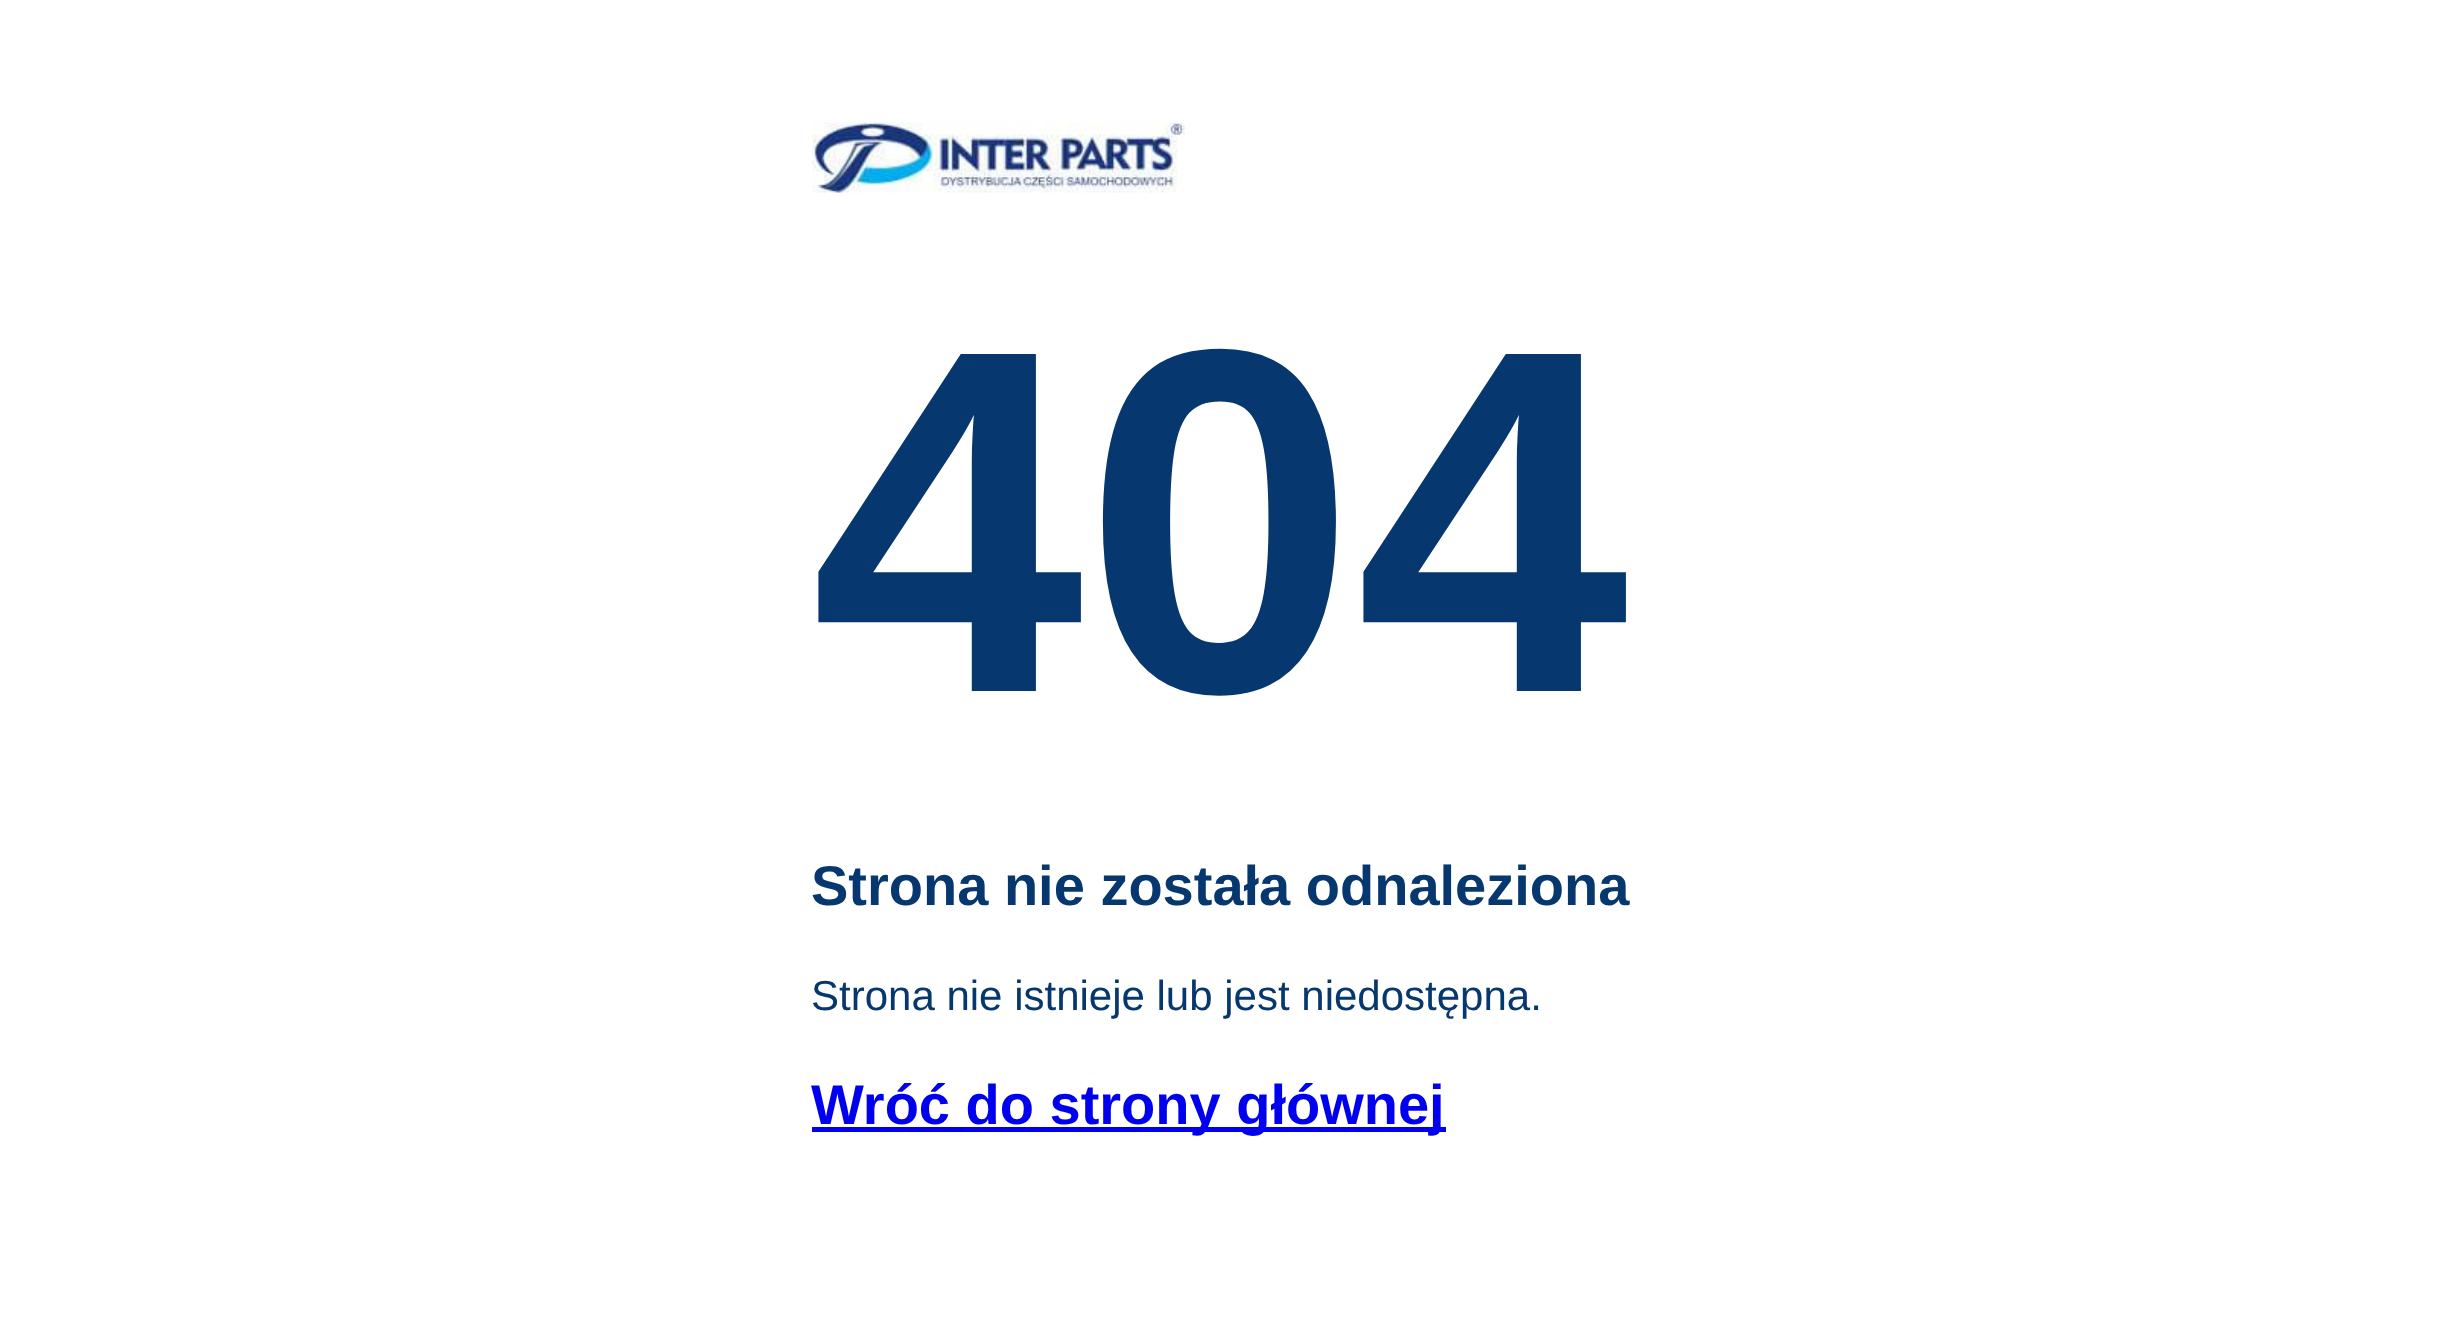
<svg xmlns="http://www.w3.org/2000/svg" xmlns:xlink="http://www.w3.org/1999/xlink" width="2441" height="1332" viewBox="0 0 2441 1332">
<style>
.cls-1{font:bold 490px Liberation Sans;fill:#06376f}
.cls-2{font:bold 56px Liberation Sans;fill:#06376f}
.cls-3{font:42px Liberation Sans;fill:#06376f}
.cls-4{font:bold 56px Liberation Sans;fill:#0000ee}
</style>
<rect width="100%" height="100%" fill="#ffffff"/>
<image xlink:href="image0.png" x="812" y="122" width="373" height="71"/>
<rect fill="#0000ee" x="812" y="1127" width="634" height="5"/>
<text class="cls-1" x="811" y="691">404</text>
<text class="cls-2" x="811" y="905">Strona nie została odnaleziona</text>
<text class="cls-3" x="811" y="1010">Strona nie istnieje lub jest niedostępna.</text>
<text class="cls-4" x="811" y="1124">Wróć do strony głównej</text>
</svg>
